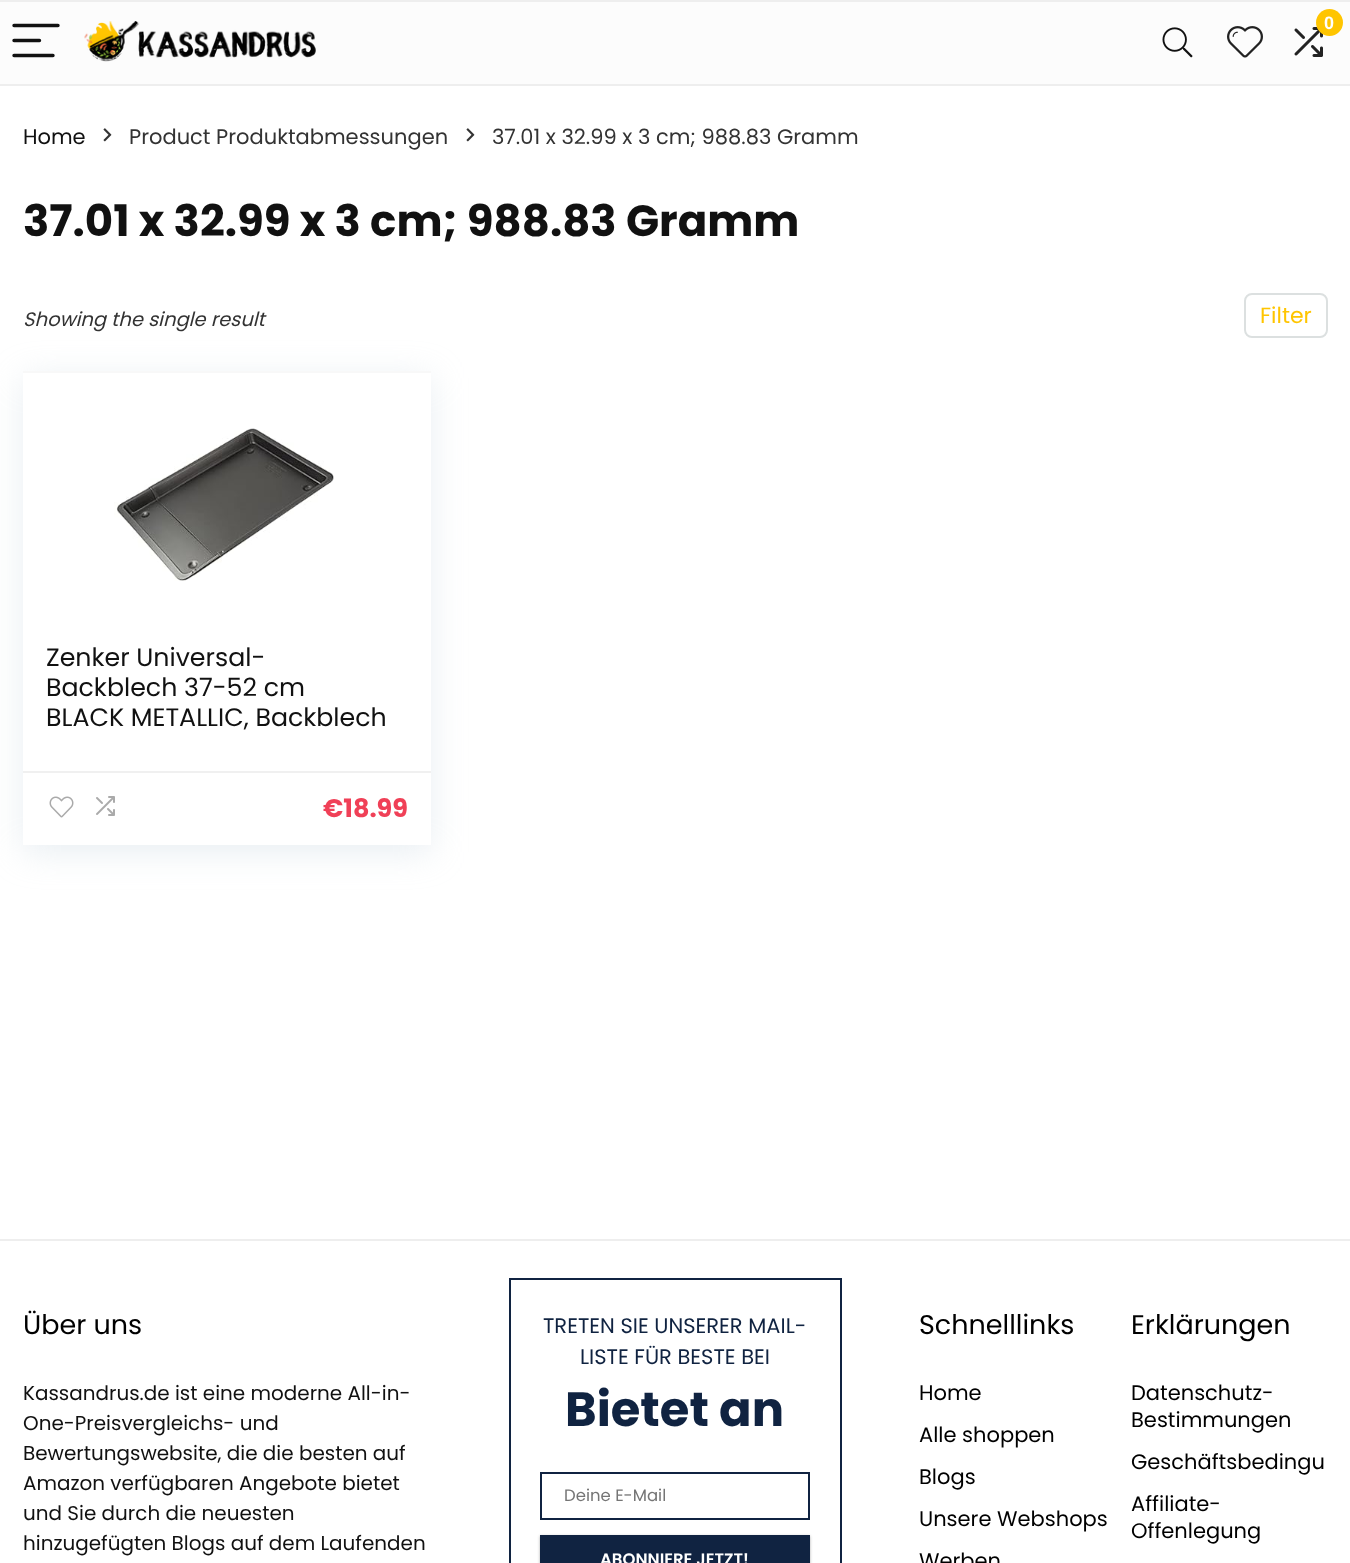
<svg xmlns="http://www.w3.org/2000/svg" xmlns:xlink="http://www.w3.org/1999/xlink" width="1350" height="1563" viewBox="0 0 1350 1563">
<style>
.cls-1{font:bold 18px Liberation Sans;fill:#ffffff}
.cls-2{font:21px Poppins;fill:#111111}
.cls-3{font:21px Poppins;fill:#333333}
.cls-4{font:bold 43.5px Poppins;fill:#111111}
.cls-5{font:italic 19.5px Poppins;fill:#333333}
.cls-6{font:22px Poppins;fill:#ffc500}
.cls-7{font:25.25px Poppins;fill:#111111}
.cls-8{font:bold 25.5px Poppins;fill:#f04057}
.cls-9{font:27px Poppins;fill:#000000}
.cls-10{font:19.95px Poppins;fill:#111111}
.cls-11{font:21px Poppins;fill:#102341}
.cls-12{font:bold 48px Poppins;fill:#102341}
.cls-13{font:16.5px Poppins;fill:#757575}
.cls-14{font:600 16.5px Poppins;fill:#ffffff}
.cls-15{font:21px Poppins;fill:#000000}
</style>
<rect width="100%" height="100%" fill="#ffffff"/>
<rect fill="#fcfcfc" x="0" y="2" width="1350" height="82"/>
<rect fill="#eeeeee" x="0" y="0" width="1350" height="2"/>
<rect fill="#eeeeee" x="0" y="84" width="1350" height="2"/>
<path fill="none" stroke="#111111" stroke-width="3.4" stroke-linecap="round" d="M14 25.5H58M14 40.5H39.5M14 55.5H53"/>
<image xlink:href="image0.png" x="84" y="21" width="232" height="41"/>
<image xlink:href="image1.png" x="1294" y="27" width="29" height="30"/>
<circle fill="#ffc500" cx="1329.5" cy="22.5" r="13.5"/>
<image xlink:href="image2.png" x="1162" y="27" width="31" height="31"/>
<image xlink:href="image3.png" x="1227" y="26" width="36" height="32"/>
<image xlink:href="image4.png" x="103" y="128" width="9" height="14"/>
<image xlink:href="image4.png" x="466" y="128" width="9" height="14"/>
<rect fill="none" stroke="#dce0e0" stroke-width="2" x="1245" y="294" width="82" height="43" rx="7"/>
<rect fill="#bccfdb" fill-opacity="0.35" filter="blur(17px)" x="23" y="378" width="408" height="474"/>
<rect fill="#ffffff" x="23" y="373" width="408" height="472"/>
<rect fill="#f8f8f8" x="23" y="371" width="408" height="2"/>
<image xlink:href="image5.png" x="114" y="428" width="220" height="153"/>
<rect fill="#f0f0f0" x="23" y="771" width="408" height="2"/>
<image xlink:href="image6.png" x="49" y="796" width="25" height="22"/>
<image xlink:href="image7.png" x="96" y="796" width="19" height="20"/>
<rect fill="#eeeeee" x="0" y="1239" width="1350" height="2"/>
<rect fill="none" stroke="#102341" stroke-width="2" x="510" y="1279" width="331" height="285"/>
<rect fill="none" stroke="#102341" stroke-width="2" x="541" y="1473" width="268" height="46"/>
<rect fill="#000000" fill-opacity="0.08" filter="blur(1.5px)" x="540" y="1536" width="270" height="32"/>
<rect fill="#3c4043" fill-opacity="0.3" filter="blur(1.5px)" x="540" y="1536" width="270" height="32"/>
<rect fill="#102341" x="540" y="1535" width="270" height="28"/>
<text class="cls-1" x="1324" y="29">0</text>
<text class="cls-2" x="23" y="144">Home</text>
<text class="cls-3" x="129" y="144">Product Produktabmessungen</text>
<text class="cls-3" x="492" y="144">37.01 x 32.99 x 3 cm; 988.83 Gramm</text>
<text class="cls-4" x="23" y="236">37.01 x 32.99 x 3 cm; 988.83 Gramm</text>
<text class="cls-5" x="23" y="326">Showing the single result</text>
<text class="cls-6" x="1260" y="323">Filter</text>
<text class="cls-7"><tspan x="46" y="666">Zenker Universal-</tspan><tspan x="46" y="696">Backblech 37-52 cm</tspan><tspan x="46" y="726">BLACK METALLIC, Backblech</tspan></text>
<text class="cls-8" x="323" y="817">€18.99</text>
<text class="cls-9" x="23" y="1334">Über uns</text>
<text class="cls-10"><tspan x="23" y="1400">Kassandrus.de ist eine moderne All-in-</tspan><tspan x="23" y="1430">One-Preisvergleichs- und</tspan><tspan x="23" y="1460">Bewertungswebsite, die die besten auf</tspan><tspan x="23" y="1490">Amazon verfügbaren Angebote bietet</tspan><tspan x="23" y="1520">und Sie durch die neuesten</tspan><tspan x="23" y="1550">hinzugefügten Blogs auf dem Laufenden</tspan></text>
<text class="cls-11" x="543" y="1333">TRETEN SIE UNSERER MAIL-</text>
<text class="cls-11" x="580" y="1364">LISTE FÜR BESTE BEI</text>
<text class="cls-12" x="565" y="1426">Bietet an</text>
<text class="cls-13" x="564" y="1501">Deine E-Mail</text>
<text class="cls-14" x="600" y="1565">ABONNIERE JETZT!</text>
<text class="cls-9" x="919" y="1334">Schnelllinks</text>
<text class="cls-15" x="919" y="1400">Home</text>
<text class="cls-15" x="919" y="1442">Alle shoppen</text>
<text class="cls-15" x="919" y="1484">Blogs</text>
<text class="cls-15" x="919" y="1526">Unsere Webshops</text>
<text class="cls-15" x="919" y="1568">Werben</text>
<text class="cls-9" x="1131" y="1334">Erklärungen</text>
<text class="cls-15"><tspan x="1131" y="1400">Datenschutz-</tspan><tspan x="1131" y="1427">Bestimmungen</tspan></text>
<text class="cls-15" x="1131" y="1469">Geschäftsbedingu</text>
<text class="cls-15"><tspan x="1131" y="1511">Affiliate-</tspan><tspan x="1131" y="1538">Offenlegung</tspan></text>
</svg>
